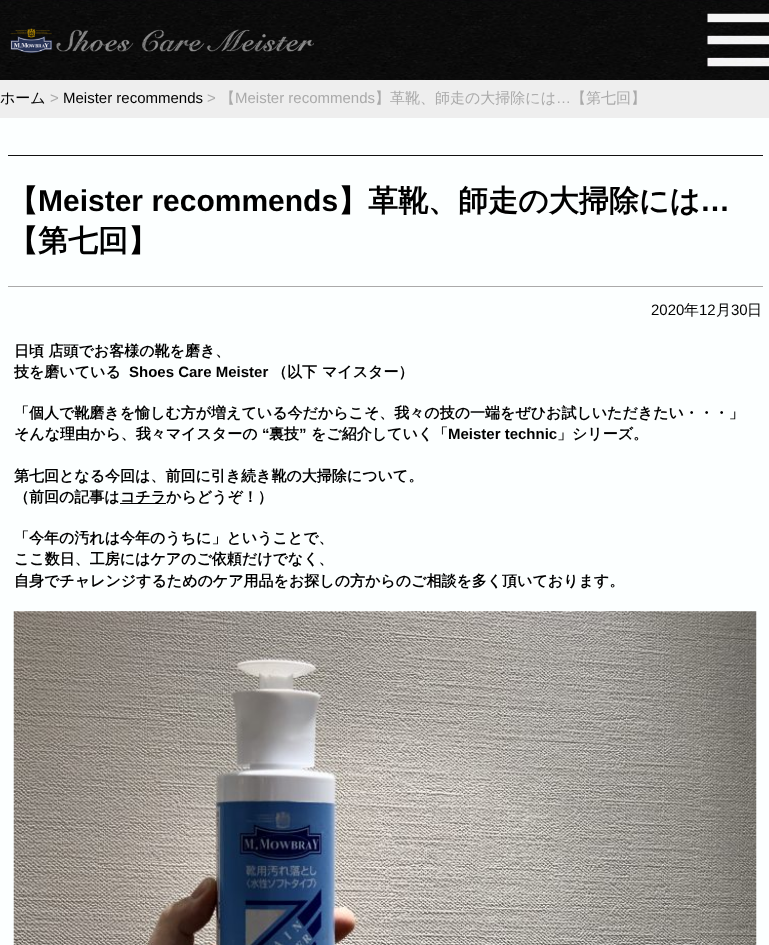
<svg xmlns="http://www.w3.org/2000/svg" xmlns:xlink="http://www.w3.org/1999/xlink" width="769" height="945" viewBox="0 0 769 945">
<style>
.cls-1{font:500 15px WenQuanYi Zen Hei;fill:#000000}
.cls-2{font:15px Liberation Sans;fill:#aaaaaa}
.cls-3{font:15px Liberation Sans;fill:#000000}
.cls-4{font:500 15px WenQuanYi Zen Hei;fill:#aaaaaa}
.cls-5{font:bold 30px WenQuanYi Zen Hei;fill:#000000}
.cls-6{font:bold 30px Liberation Sans;fill:#000000}
.cls-7{font:bold 15px WenQuanYi Zen Hei;fill:#000000}
.cls-8{font:bold 15px Liberation Sans;fill:#000000}
</style>
<rect width="100%" height="100%" fill="#ffffff"/>
<image xlink:href="image0.png" x="0" y="0" width="769" height="80"/>
<image xlink:href="image1.png" x="10" y="28" width="304" height="25"/>
<image xlink:href="image2.png" x="707" y="13" width="62" height="54"/>
<rect fill="#fcffff" x="0" y="118" width="769" height="827"/>
<rect fill="#eeeeee" x="0" y="80" width="769" height="38"/>
<rect fill="#111111" x="8" y="155" width="755" height="1"/>
<rect fill="#aaaaaa" x="8" y="286" width="755" height="1"/>
<rect fill="#000000" x="120" y="503" width="46" height="1"/>
<image xlink:href="image3.png" x="13" y="611" width="744" height="334"/>
<text class="cls-1" x="0" y="103">ホーム</text>
<text class="cls-2" x="50" y="103">&gt;</text>
<text class="cls-3" x="63" y="103">Meister recommends</text>
<text class="cls-2" x="207" y="103">&gt;</text>
<text class="cls-4" x="220" y="103">【</text>
<text class="cls-2" x="235" y="103">Meister recommends</text>
<text class="cls-4" x="375" y="103">】革靴、師走の大掃除には</text>
<text class="cls-2" x="556" y="103">…</text>
<text class="cls-4" x="571" y="103">【第七回】</text>
<text class="cls-5" x="8" y="211">【</text>
<text class="cls-6" x="38" y="211">Meister recommends</text>
<text class="cls-5" x="338" y="211">】革靴、師走の大掃除には</text>
<text class="cls-6" x="700" y="211">…</text>
<text class="cls-5" x="8" y="251">【第七回】</text>
<text class="cls-3" x="651" y="315">2020</text>
<text class="cls-1" x="684" y="315">年</text>
<text class="cls-3" x="699" y="315">12</text>
<text class="cls-1" x="716" y="315">月</text>
<text class="cls-3" x="731" y="315">30</text>
<text class="cls-1" x="747" y="315">日</text>
<text class="cls-7"><tspan x="14" y="356">日頃 店頭でお客様の靴を磨き、</tspan><tspan x="14" y="377">技を磨いている</tspan></text>
<text class="cls-8" x="129" y="377">Shoes Care Meister</text>
<text class="cls-7" x="272" y="377">（以下</text>
<text class="cls-7" x="322" y="377">マイスター）</text>
<text class="cls-7"><tspan x="14" y="418">「個人で靴磨きを愉しむ方が増えている今だからこそ、我々の技の一端をぜひお試しいただきたい・・・」</tspan><tspan x="14" y="439">そんな理由から、我々マイスターの</tspan></text>
<text class="cls-8" x="262" y="439">“</text>
<text class="cls-7" x="269" y="439">裏技</text>
<text class="cls-8" x="299" y="439">”</text>
<text class="cls-7" x="311" y="439">をご紹介していく「</text>
<text class="cls-8" x="448" y="439">Meister technic</text>
<text class="cls-7" x="557" y="439">」シリーズ。</text>
<text class="cls-7"><tspan x="14" y="481">第七回となる今回は、前回に引き続き靴の大掃除について。</tspan><tspan x="14" y="502">（前回の記事は</tspan></text>
<text class="cls-7" x="120" y="502">コチラからどうぞ！）</text>
<text class="cls-7"><tspan x="14" y="543">「今年の汚れは今年のうちに」ということで、</tspan><tspan x="14" y="564">ここ数日、工房にはケアのご依頼だけでなく、</tspan><tspan x="14" y="586">自身でチャレンジするためのケア用品をお探しの方からのご相談を多く頂いております。</tspan></text>
</svg>
